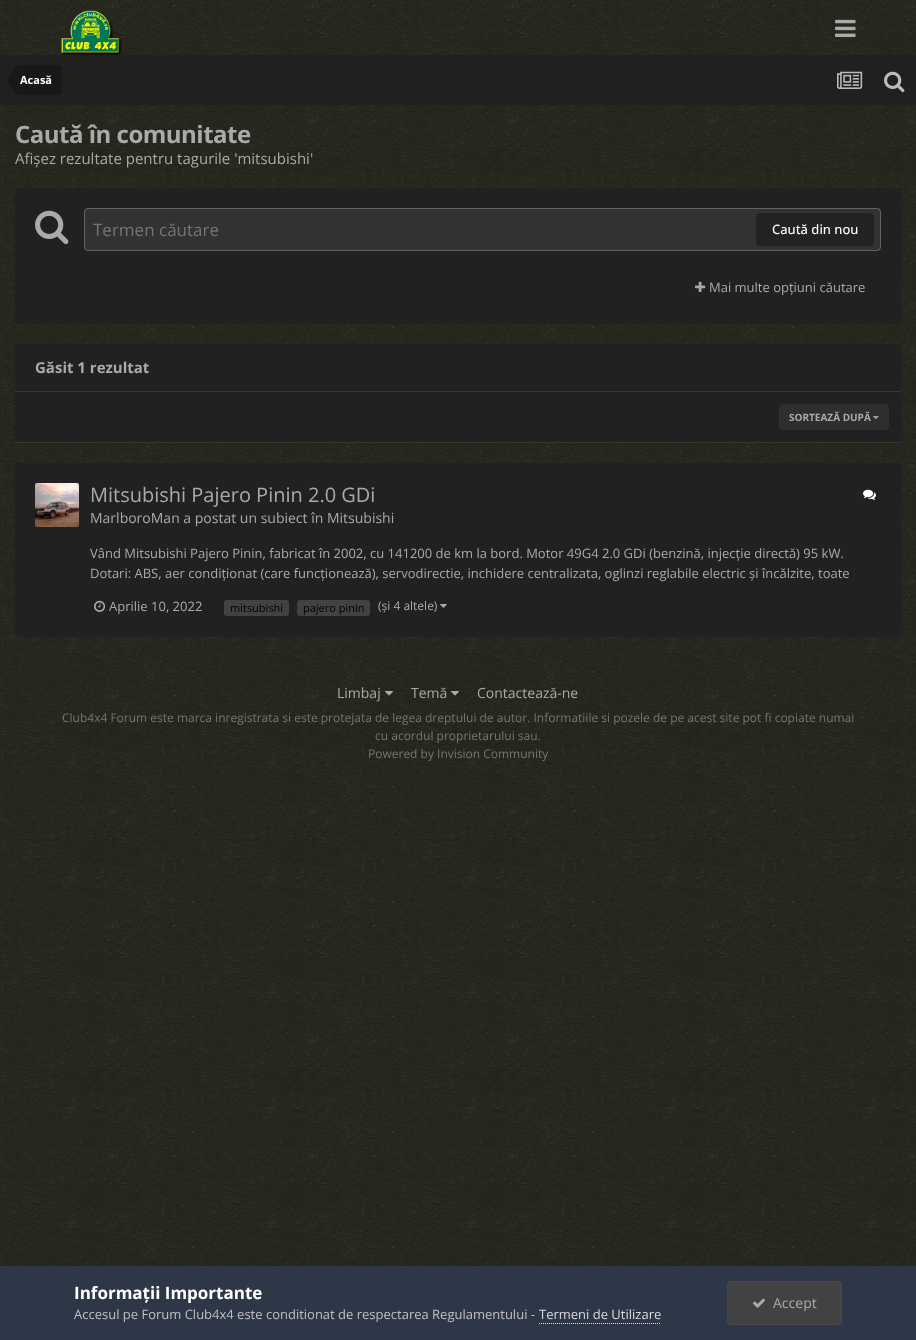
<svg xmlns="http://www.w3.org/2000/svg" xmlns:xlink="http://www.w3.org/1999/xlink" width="916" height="1340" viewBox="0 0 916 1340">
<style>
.cls-1{font:bold 11px Open Sans;fill:#ffffff}
.cls-2{font:bold 24px Open Sans;letter-spacing:-0.5px;fill:#aaaaaa}
.cls-3{font:15px Open Sans;fill:#aaaaaa}
.cls-4{font:17px Open Sans;fill:#757575}
.cls-5{font:500 13px Open Sans;fill:#ffffff}
.cls-6{font:13px Open Sans;fill:#aaaaaa}
.cls-7{font:bold 15px Open Sans;fill:#aaaaaa}
.cls-8{font:bold 10px Open Sans;fill:#aaaaaa}
.cls-9{font:20px Open Sans;fill:#aaaaaa}
.cls-10{font:14px Open Sans;fill:#aaaaaa}
.cls-11{font:11px Open Sans;fill:#000000}
.cls-12{font:12px Open Sans;fill:#aaaaaa}
.cls-13{font:12px Open Sans;fill:#757575}
.cls-14{font:bold 17px Open Sans;fill:#ffffff}
.cls-15{font:13px Open Sans;fill:#c0c0c0}
.cls-16{font:13px Open Sans;fill:#dadada}
</style>
<rect width="100%" height="100%" fill="#ffffff"/>
<image xlink:href="image0.png" x="0" y="0" width="916" height="1266"/>
<image xlink:href="image1.png" x="61" y="10" width="61" height="45"/>
<image xlink:href="image2.png" x="835" y="19" width="21" height="18"/>
<rect fill="#202020" x="0" y="55" width="916" height="50"/>
<path fill="#181818" d="M20 65H57C60 65 62 67 62 70V90C62 93 60 95 57 95H20Z"/>
<path fill="#181818" d="M20 80V95C15.5 95 13.5 90.5 11 87C9.5 85 7 83 7 80ZM20 80H7C7 77 9.5 75 11 73C13.5 69.5 15.5 65 20 65Z"/>
<image xlink:href="image3.png" x="837" y="71" width="26" height="18"/>
<image xlink:href="image4.png" x="884" y="71" width="21" height="22"/>
<rect fill="#212121" x="15" y="188" width="886" height="136"/>
<image xlink:href="image5.png" x="35" y="210" width="34" height="35"/>
<rect fill="#323232" x="84" y="208" width="797" height="43" rx="4"/>
<rect fill="none" stroke="#aaaaaa" stroke-opacity="0.4" x="84.5" y="208.5" width="796" height="42" rx="3.5"/>
<rect fill="#232323" x="756" y="213" width="118" height="33" rx="4"/>
<image xlink:href="image6.png" x="695" y="281" width="11" height="11"/>
<rect fill="#212121" x="15" y="344" width="886" height="98"/>
<rect fill="#363636" x="15" y="391" width="886" height="1"/>
<rect fill="#363636" x="15" y="442" width="886" height="1"/>
<rect fill="#323232" x="779" y="404" width="110" height="26" rx="4"/>
<image xlink:href="image7.png" x="873" y="416" width="6" height="4"/>
<rect fill="#121212" fill-opacity="0.1" x="779" y="404" width="110" height="26" rx="4"/>
<rect fill="#212121" x="15" y="463" width="886" height="174" rx="4"/>
<image xlink:href="image8.png" x="35" y="483" width="44" height="44"/>
<image xlink:href="image9.png" x="863" y="489" width="13" height="11"/>
<image xlink:href="image10.png" x="94" y="600" width="12" height="12"/>
<rect fill="#424242" x="224" y="600" width="65" height="16" rx="3"/>
<rect fill="#424242" x="297" y="600" width="73" height="16" rx="3"/>
<image xlink:href="image11.png" x="440" y="604" width="7" height="4"/>
<image xlink:href="image12.png" x="385" y="691" width="8" height="5"/>
<image xlink:href="image13.png" x="451" y="691" width="8" height="5"/>
<rect fill="#2d3748" x="0" y="1266" width="916" height="74"/>
<path fill="none" stroke="#dadada" stroke-dasharray="1 1" d="M539 1323.5H661"/>
<rect fill="#424242" x="727" y="1281" width="115" height="44" rx="4"/>
<rect fill="none" stroke="#aaaaaa" stroke-opacity="0.07" x="727.5" y="1281.5" width="114" height="43" rx="3.5"/>
<image xlink:href="image14.png" x="753" y="1298" width="12" height="10"/>
<text class="cls-1" x="20" y="84">Acasă</text>
<text class="cls-2" x="15" y="143">Caută în comunitate</text>
<text class="cls-3" x="15" y="164">Afișez rezultate pentru tagurile 'mitsubishi'</text>
<text class="cls-4" x="93" y="236">Termen căutare</text>
<text class="cls-5" x="772" y="234">Caută din nou</text>
<text class="cls-6" x="709" y="292">Mai multe opțiuni căutare</text>
<text class="cls-7" x="35" y="373">Găsit 1 rezultat</text>
<text class="cls-8" x="789" y="421">SORTEAZĂ DUPĂ</text>
<text class="cls-9" x="90" y="502">Mitsubishi Pajero Pinin 2.0 GDi</text>
<text class="cls-10" x="90" y="523">MarlboroMan a postat un subiect în Mitsubishi</text>
<text class="cls-6"><tspan x="90" y="558">Vând Mitsubishi Pajero Pinin, fabricat în 2002, cu 141200 de km la bord. Motor 49G4 2.0 GDi (benzină, injecție directă) 95 kW.</tspan><tspan x="90" y="578">Dotari: ABS, aer condiționat (care funcționează), servodirectie, inchidere centralizata, oglinzi reglabile electric și încălzite, toate</tspan></text>
<text class="cls-6" x="109" y="611">Aprilie 10, 2022</text>
<text class="cls-11" x="230" y="612">mitsubishi</text>
<text class="cls-11" x="303" y="612">pajero pinin</text>
<text class="cls-12" x="378" y="610">(și 4 altele)</text>
<text class="cls-10" x="337" y="698">Limbaj</text>
<text class="cls-10" x="411" y="698">Temă</text>
<text class="cls-10" x="477" y="698">Contactează-ne</text>
<text class="cls-13" x="62" y="722">Club4x4 Forum este marca inregistrata si este protejata de legea dreptului de autor. Informatiile si pozele de pe acest site pot fi copiate numai</text>
<text class="cls-13" x="375" y="740">cu acordul proprietarului sau.</text>
<text class="cls-13" x="368" y="758">Powered by Invision Community</text>
<text class="cls-14" x="74" y="1299">Informații Importante</text>
<text class="cls-15" x="74" y="1319">Accesul pe Forum Club4x4 este conditionat de respectarea Regulamentului -</text>
<text class="cls-16" x="539" y="1319">Termeni de Utilizare</text>
<text class="cls-10" x="773" y="1308">Accept</text>
</svg>
